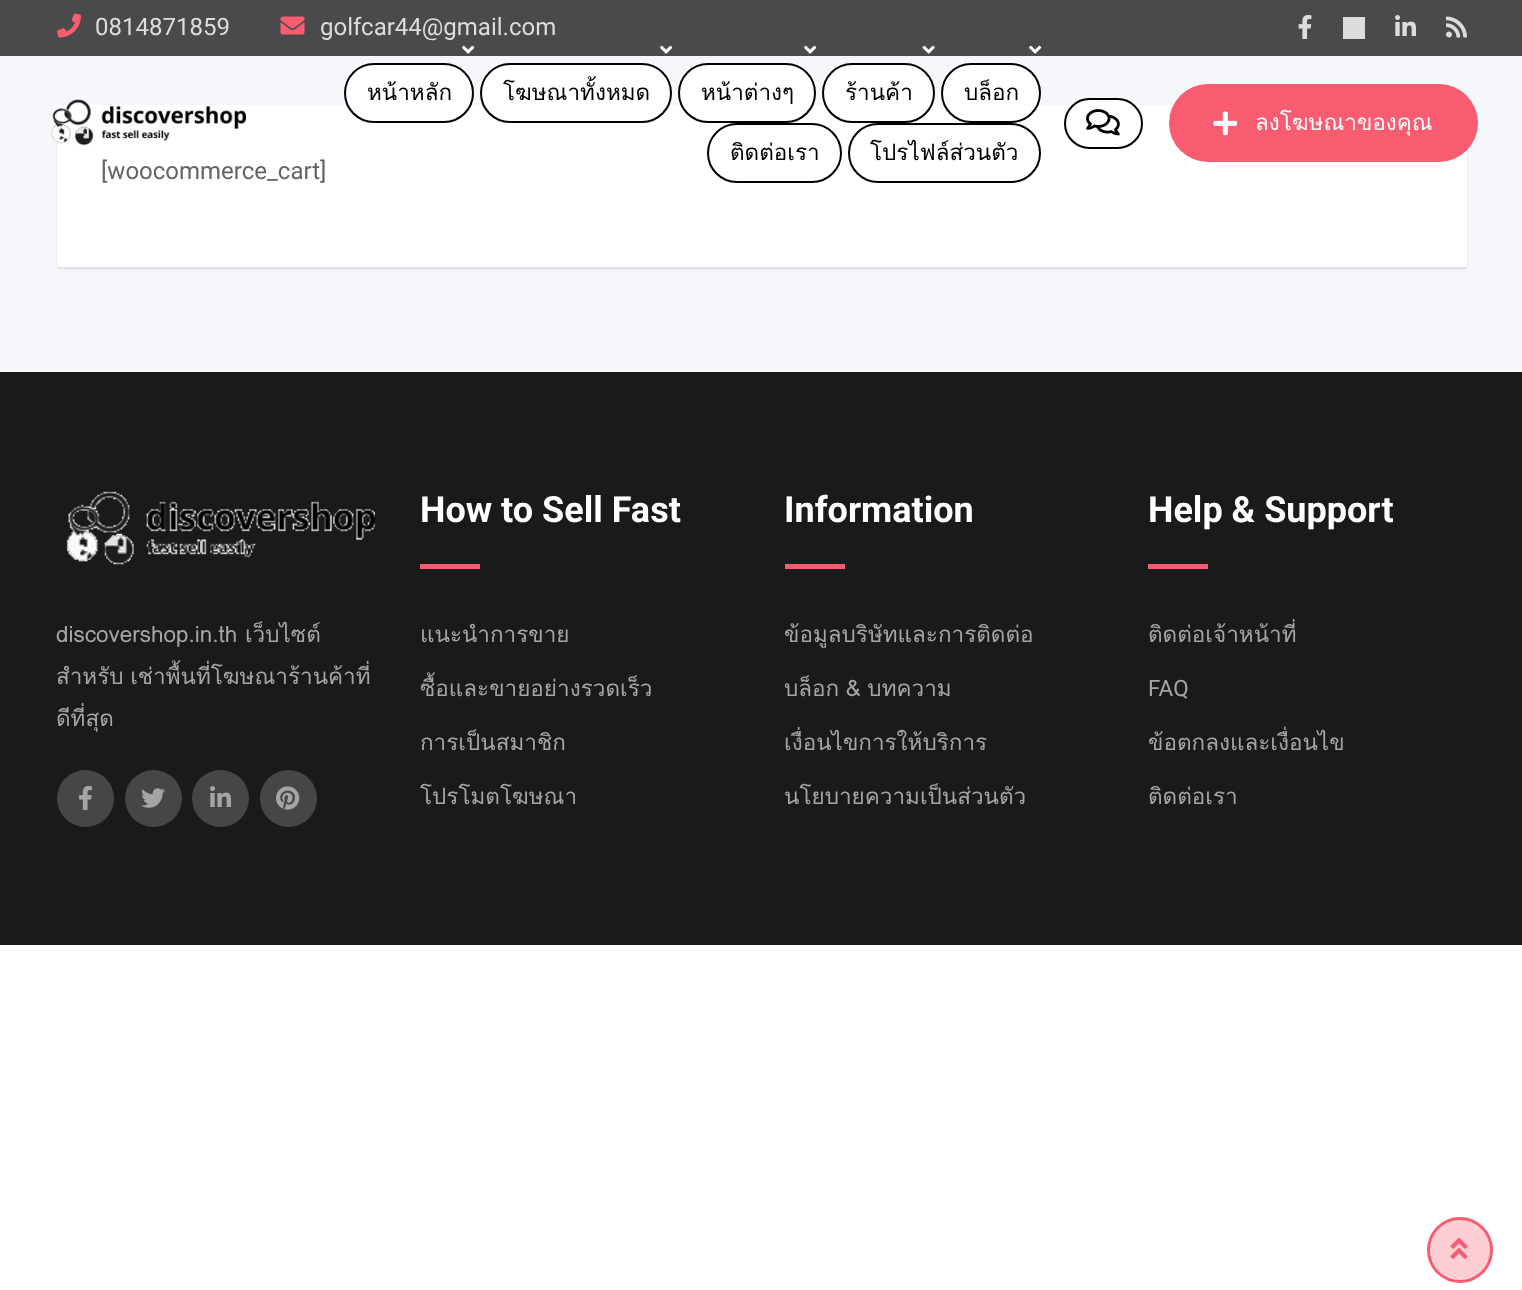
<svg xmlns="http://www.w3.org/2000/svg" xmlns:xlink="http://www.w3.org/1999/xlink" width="1522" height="1290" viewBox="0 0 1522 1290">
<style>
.cls-1{font:24px Roboto;fill:#dddddd}
.cls-2{font:22.5px Loma;fill:#000000}
.cls-3{font:22.5px Loma;fill:#ffffff}
.cls-4{font:24px Roboto;fill:#646464}
.cls-5{font:22.5px Loma;fill:#a5a5a5}
.cls-6{font:bold 36px Roboto;fill:#ffffff}
.cls-7{font:22.5px Roboto;fill:#a5a5a5}
</style>
<rect width="100%" height="100%" fill="#ffffff"/>
<rect fill="#494a4b" x="0" y="0" width="1522" height="56"/>
<image xlink:href="image0.png" x="57" y="13" width="24" height="25"/>
<image xlink:href="image1.png" x="280" y="16" width="25" height="19"/>
<image xlink:href="image2.png" x="1298" y="15" width="14" height="24"/>
<rect fill="#dddddd" x="1343" y="17" width="22" height="22"/>
<image xlink:href="image3.png" x="1395" y="15" width="21" height="21"/>
<image xlink:href="image4.png" x="1446" y="16" width="21" height="22"/>
<rect fill="#f5f7fa" x="0" y="56" width="1522" height="316"/>
<rect fill="#000000" fill-opacity="0.1" filter="blur(1px)" x="57" y="107" width="1410" height="162" rx="3"/>
<rect fill="#ffffff" x="57" y="105" width="1410" height="162"/>
<image xlink:href="image5.png" x="51" y="99" width="195" height="47"/>
<image xlink:href="image6.png" x="462" y="45" width="13" height="9"/>
<rect fill="#ffffff" stroke="#000000" stroke-width="2" x="345" y="64" width="128" height="58" rx="29"/>
<image xlink:href="image6.png" x="660" y="45" width="13" height="9"/>
<rect fill="#ffffff" stroke="#000000" stroke-width="2" x="481" y="64" width="190" height="58" rx="29"/>
<image xlink:href="image6.png" x="804" y="45" width="13" height="9"/>
<rect fill="#ffffff" stroke="#000000" stroke-width="2" x="679" y="64" width="136" height="58" rx="29"/>
<image xlink:href="image7.png" x="922" y="45" width="13" height="9"/>
<rect fill="#ffffff" stroke="#000000" stroke-width="2" x="823" y="64" width="111" height="58" rx="29"/>
<image xlink:href="image6.png" x="1029" y="45" width="13" height="9"/>
<rect fill="#ffffff" stroke="#000000" stroke-width="2" x="942" y="64" width="98" height="58" rx="29"/>
<rect fill="none" stroke="#000000" stroke-width="2" x="708" y="124" width="133" height="58" rx="29"/>
<rect fill="none" stroke="#000000" stroke-width="2" x="849" y="124" width="191" height="58" rx="29"/>
<rect fill="#ffffff" stroke="#000000" stroke-width="2" x="1065" y="99" width="77" height="49" rx="24.5"/>
<image xlink:href="image8.png" x="1086" y="109" width="34" height="27"/>
<rect fill="#f85c70" x="1169" y="84" width="309" height="78" rx="39"/>
<image xlink:href="image9.png" x="1213" y="111" width="25" height="25"/>
<rect fill="#1a1a1a" x="0" y="372" width="1522" height="573"/>
<image xlink:href="image10.png" x="66" y="491" width="309" height="74"/>
<circle fill="#464646" cx="85.5" cy="798.5" r="28.5"/>
<image xlink:href="image11.png" x="79" y="786" width="13" height="24"/>
<circle fill="#464646" cx="153.5" cy="798.5" r="28.5"/>
<image xlink:href="image12.png" x="141" y="788" width="24" height="20"/>
<circle fill="#464646" cx="220.5" cy="798.5" r="28.5"/>
<image xlink:href="image13.png" x="210" y="786" width="21" height="21"/>
<circle fill="#464646" cx="288.5" cy="798.5" r="28.5"/>
<image xlink:href="image14.png" x="276" y="786" width="24" height="24"/>
<rect fill="#f85c70" x="420" y="564" width="60" height="5"/>
<rect fill="#f85c70" x="785" y="564" width="60" height="5"/>
<rect fill="#f85c70" x="1148" y="564" width="60" height="5"/>
<circle fill="#fdced4" stroke="#f85c70" stroke-width="3" cx="1460" cy="1250" r="31.5"/>
<image xlink:href="image15.png" x="1450" y="1237" width="18" height="22"/>
<text class="cls-1" x="95" y="35">0814871859</text>
<text class="cls-1" x="320" y="35">golfcar44@gmail.com</text>
<text class="cls-2" x="367" y="100">หน้าหลัก</text>
<text class="cls-2" x="503" y="100">โฆษณาทั้งหมด</text>
<text class="cls-2" x="701" y="100">หน้าต่างๆ</text>
<text class="cls-2" x="845" y="100">ร้านค้า</text>
<text class="cls-2" x="964" y="100">บล็อก</text>
<text class="cls-2" x="730" y="160">ติดต่อเรา</text>
<text class="cls-2" x="870" y="160">โปรไฟล์ส่วนตัว</text>
<text class="cls-3" x="1255" y="130">ลงโฆษณาของคุณ</text>
<text class="cls-4" x="101" y="179">[woocommerce_cart]</text>
<text class="cls-5"><tspan x="56" y="642">discovershop.in.th เว็บไซต์</tspan><tspan x="56" y="684" word-spacing="-1">สำหรับ เช่าพื้นที่โฆษณาร้านค้าที่</tspan><tspan x="56" y="726">ดีที่สุด</tspan></text>
<text class="cls-6" x="420" y="522">How to Sell Fast</text>
<text class="cls-5" x="420" y="642">แนะนำการขาย</text>
<text class="cls-5" x="420" y="696">ซื้อและขายอย่างรวดเร็ว</text>
<text class="cls-5" x="420" y="750">การเป็นสมาชิก</text>
<text class="cls-5" x="420" y="804">โปรโมตโฆษณา</text>
<text class="cls-6" x="784" y="522">Information</text>
<text class="cls-5" x="784" y="642">ข้อมูลบริษัทและการติดต่อ</text>
<text class="cls-5" x="784" y="696" word-spacing="-1">บล็อก &amp; บทความ</text>
<text class="cls-5" x="784" y="750">เงื่อนไขการให้บริการ</text>
<text class="cls-5" x="784" y="804">นโยบายความเป็นส่วนตัว</text>
<text class="cls-6" x="1148" y="522">Help &amp; Support</text>
<text class="cls-5" x="1148" y="642">ติดต่อเจ้าหน้าที่</text>
<text class="cls-7" x="1148" y="696">FAQ</text>
<text class="cls-5" x="1148" y="750">ข้อตกลงและเงื่อนไข</text>
<text class="cls-5" x="1148" y="804">ติดต่อเรา</text>
</svg>
